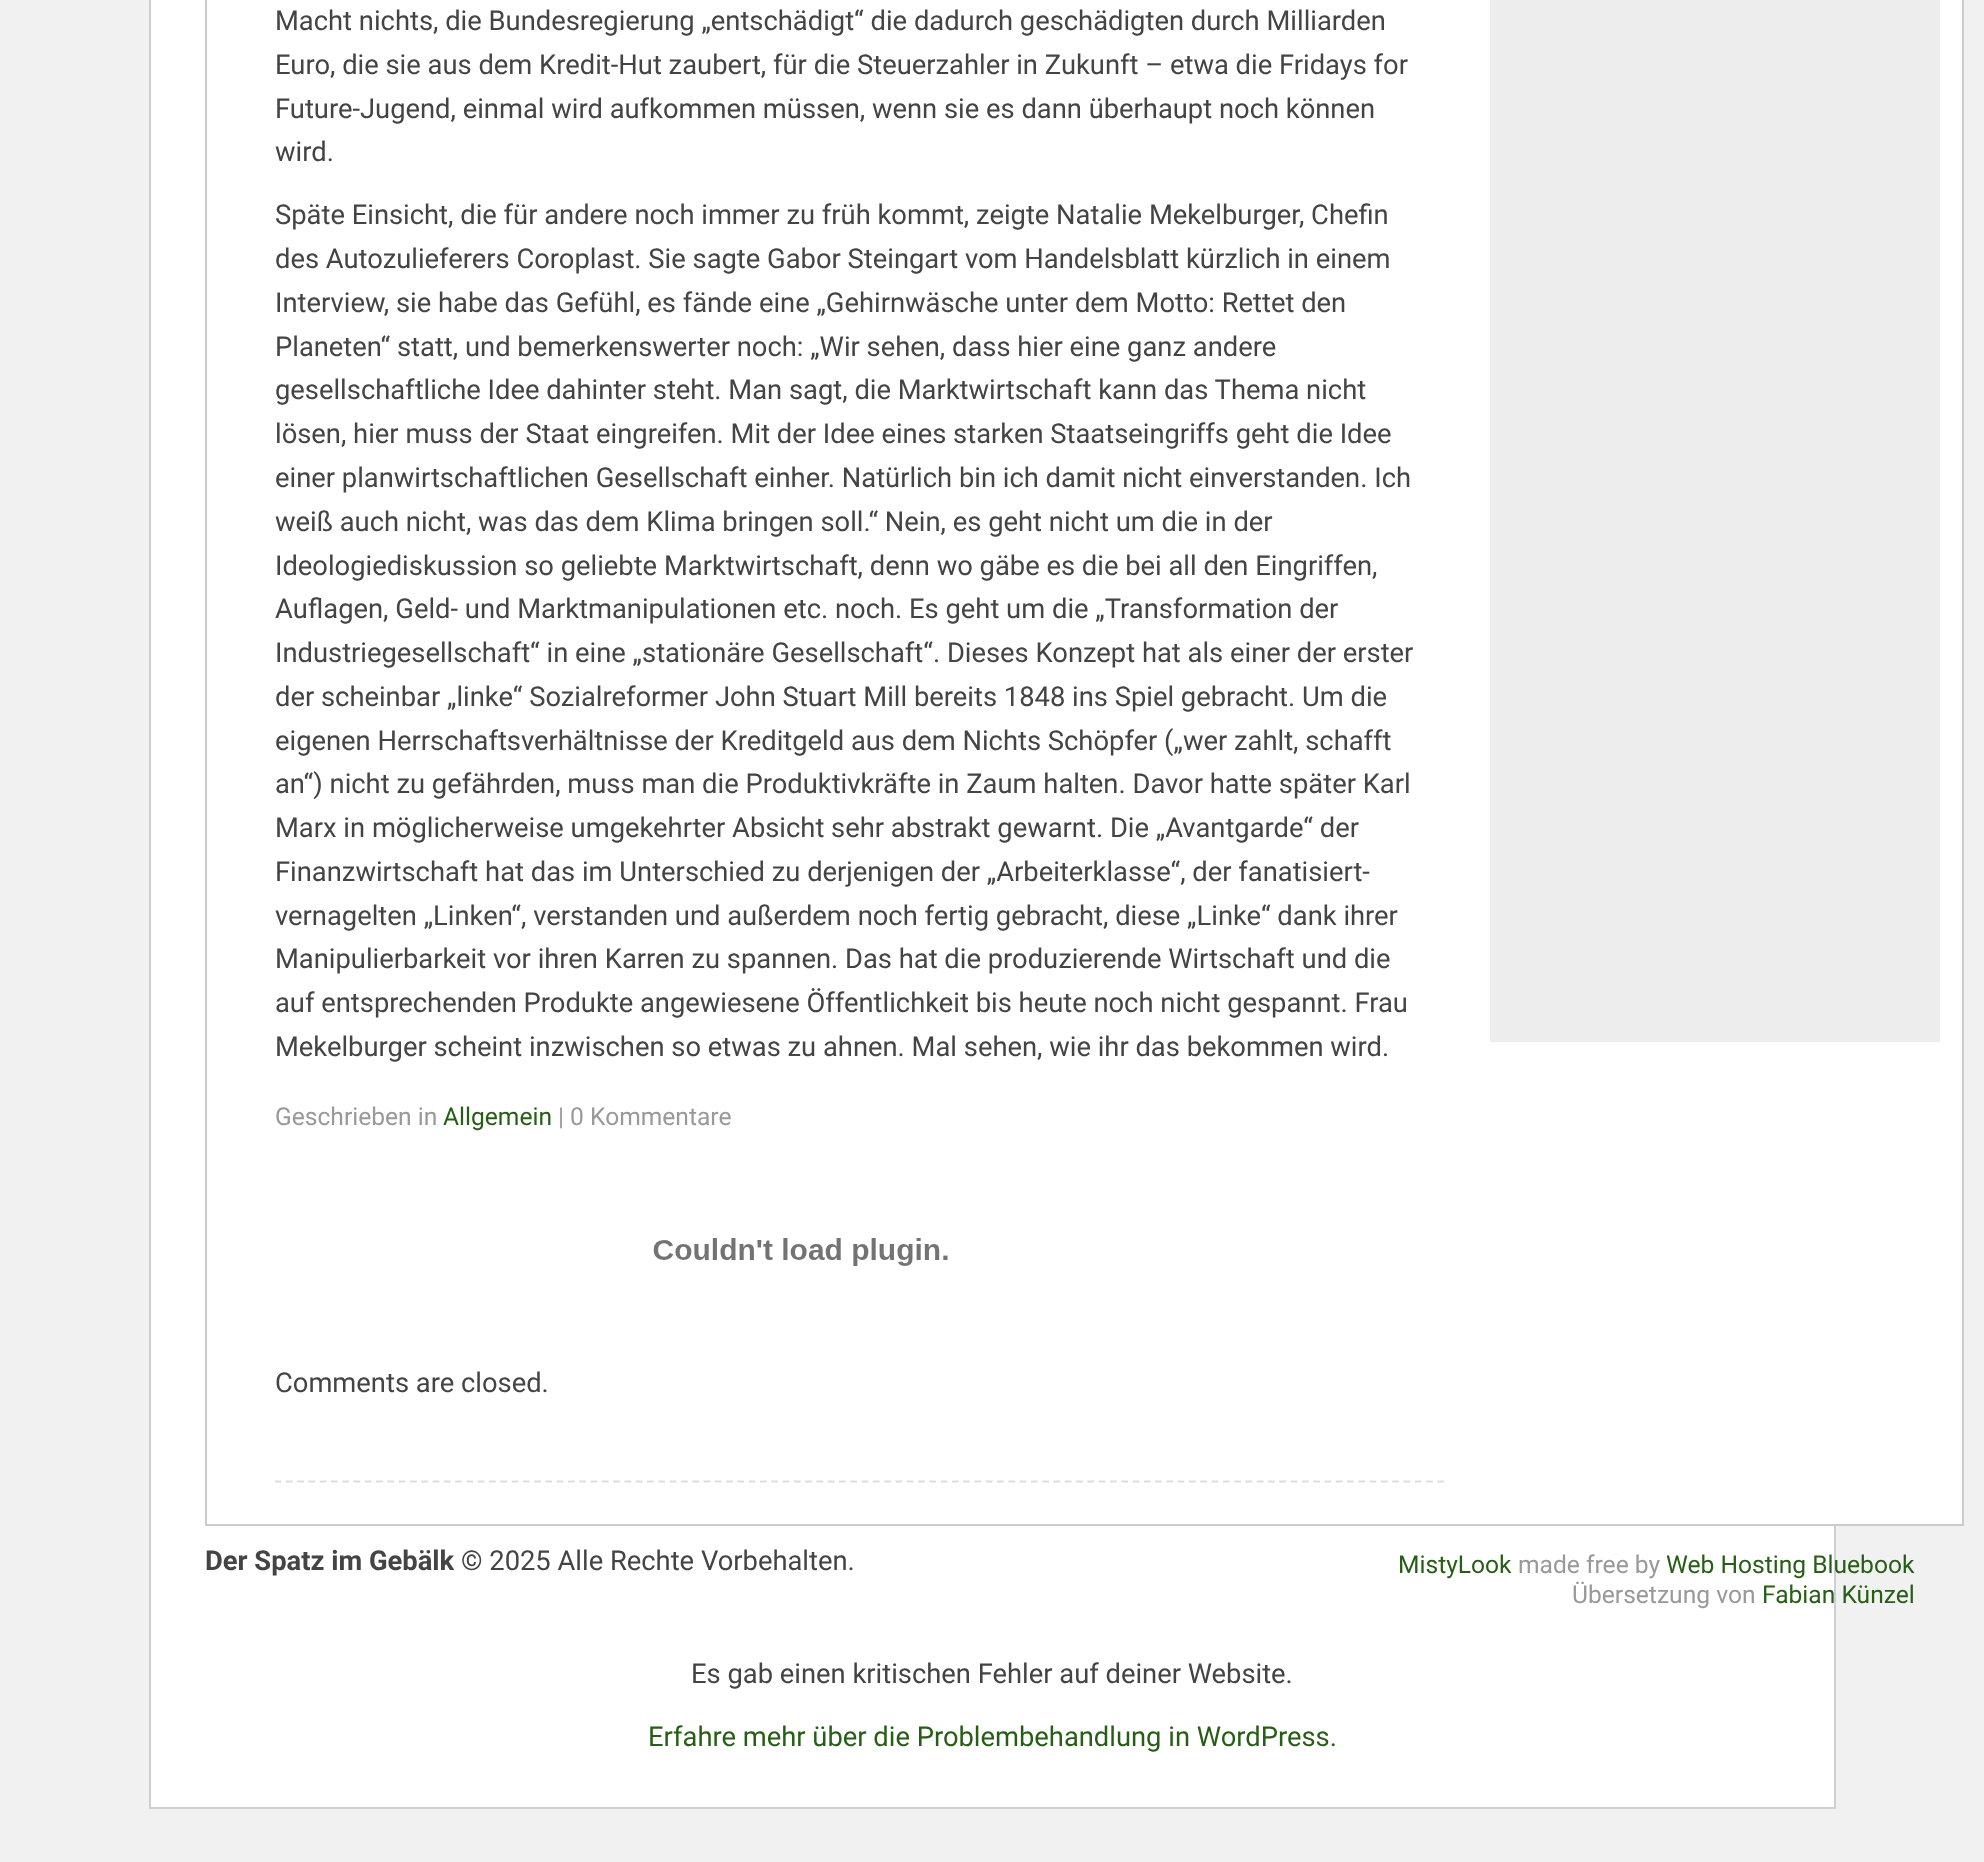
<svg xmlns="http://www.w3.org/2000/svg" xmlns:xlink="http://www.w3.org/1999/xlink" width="1984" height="1862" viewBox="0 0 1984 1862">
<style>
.cls-1{font:27.35px Roboto;fill:#444444}
.cls-2{font:24.6px Roboto;fill:#999999}
.cls-3{font:24.6px Roboto;fill:#265e15}
.cls-4{font:bold 27.35px Roboto;fill:#444444}
.cls-5{font:27.35px Roboto;fill:#265e15}
</style>
<defs>
<clipPath id="clip1"><rect x="275" y="0" width="1665" height="1501"/></clipPath>
</defs>
<rect width="100%" height="100%" fill="#f1f1f1"/>
<rect fill="#ffffff" stroke="#ccd0d4" stroke-width="2" x="150" y="-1" width="1685" height="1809"/>
<rect fill="#ffffff" x="1834" y="0" width="128" height="1524"/>
<rect fill="none" stroke="#cccccc" stroke-width="2" x="206" y="-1" width="1757" height="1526"/>
<g clip-path="url(#clip1)">
<path fill="none" stroke="#dddddd" stroke-width="2.2" stroke-dasharray="6.75 4.54" d="M274.5 1481.5H1444.5"/>
</g>
<image xlink:href="image0.png" x="653" y="1238" width="295" height="28"/>
<rect fill="#ededed" x="1490" y="0" width="450" height="1042"/>
<text class="cls-1"><tspan x="275" y="30">Macht nichts, die Bundesregierung „entschädigt“ die dadurch geschädigten durch Milliarden</tspan><tspan x="275" y="74">Euro, die sie aus dem Kredit-Hut zaubert, für die Steuerzahler in Zukunft – etwa die Fridays for</tspan><tspan x="275" y="118">Future-Jugend, einmal wird aufkommen müssen, wenn sie es dann überhaupt noch können</tspan><tspan x="275" y="161">wird.</tspan></text>
<text class="cls-1"><tspan x="275" y="224">Späte Einsicht, die für andere noch immer zu früh kommt, zeigte Natalie Mekelburger, Chefin</tspan><tspan x="275" y="268">des Autozulieferers Coroplast. Sie sagte Gabor Steingart vom Handelsblatt kürzlich in einem</tspan><tspan x="275" y="312">Interview, sie habe das Gefühl, es fände eine „Gehirnwäsche unter dem Motto: Rettet den</tspan><tspan x="275" y="356">Planeten“ statt, und bemerkenswerter noch: „Wir sehen, dass hier eine ganz andere</tspan><tspan x="275" y="399">gesellschaftliche Idee dahinter steht. Man sagt, die Marktwirtschaft kann das Thema nicht</tspan><tspan x="275" y="443">lösen, hier muss der Staat eingreifen. Mit der Idee eines starken Staatseingriffs geht die Idee</tspan><tspan x="275" y="487">einer planwirtschaftlichen Gesellschaft einher. Natürlich bin ich damit nicht einverstanden. Ich</tspan><tspan x="275" y="531">weiß auch nicht, was das dem Klima bringen soll.“ Nein, es geht nicht um die in der</tspan><tspan x="275" y="575">Ideologiediskussion so geliebte Marktwirtschaft, denn wo gäbe es die bei all den Eingriffen,</tspan><tspan x="275" y="618">Auflagen, Geld- und Marktmanipulationen etc. noch. Es geht um die „Transformation der</tspan><tspan x="275" y="662">Industriegesellschaft“ in eine „stationäre Gesellschaft“. Dieses Konzept hat als einer der erster</tspan><tspan x="275" y="706">der scheinbar „linke“ Sozialreformer John Stuart Mill bereits 1848 ins Spiel gebracht. Um die</tspan><tspan x="275" y="750">eigenen Herrschaftsverhältnisse der Kreditgeld aus dem Nichts Schöpfer („wer zahlt, schafft</tspan><tspan x="275" y="793">an“) nicht zu gefährden, muss man die Produktivkräfte in Zaum halten. Davor hatte später Karl</tspan><tspan x="275" y="837">Marx in möglicherweise umgekehrter Absicht sehr abstrakt gewarnt. Die „Avantgarde“ der</tspan><tspan x="275" y="881">Finanzwirtschaft hat das im Unterschied zu derjenigen der „Arbeiterklasse“, der fanatisiert-</tspan><tspan x="275" y="925">vernagelten „Linken“, verstanden und außerdem noch fertig gebracht, diese „Linke“ dank ihrer</tspan><tspan x="275" y="968">Manipulierbarkeit vor ihren Karren zu spannen. Das hat die produzierende Wirtschaft und die</tspan><tspan x="275" y="1012">auf entsprechenden Produkte angewiesene Öffentlichkeit bis heute noch nicht gespannt. Frau</tspan><tspan x="275" y="1056">Mekelburger scheint inzwischen so etwas zu ahnen. Mal sehen, wie ihr das bekommen wird.</tspan></text>
<text class="cls-2" x="275" y="1125">Geschrieben in</text>
<text class="cls-3" x="443" y="1125">Allgemein</text>
<text class="cls-2" x="558" y="1125">| 0 Kommentare</text>
<text class="cls-1" x="275" y="1392">Comments are closed.</text>
<text class="cls-4" x="205" y="1570">Der Spatz im Gebälk</text>
<text class="cls-1" x="461" y="1570">© 2025 Alle Rechte Vorbehalten.</text>
<text class="cls-3" x="1398" y="1573">MistyLook</text>
<text class="cls-2" x="1518" y="1573">made free by</text>
<text class="cls-3" x="1666" y="1573">Web Hosting Bluebook</text>
<text class="cls-2" x="1572" y="1603">Übersetzung von</text>
<text class="cls-3" x="1762" y="1603">Fabian Künzel</text>
<text class="cls-1" x="691" y="1683">Es gab einen kritischen Fehler auf deiner Website.</text>
<text class="cls-5" x="648" y="1746">Erfahre mehr über die Problembehandlung in WordPress.</text>
</svg>
